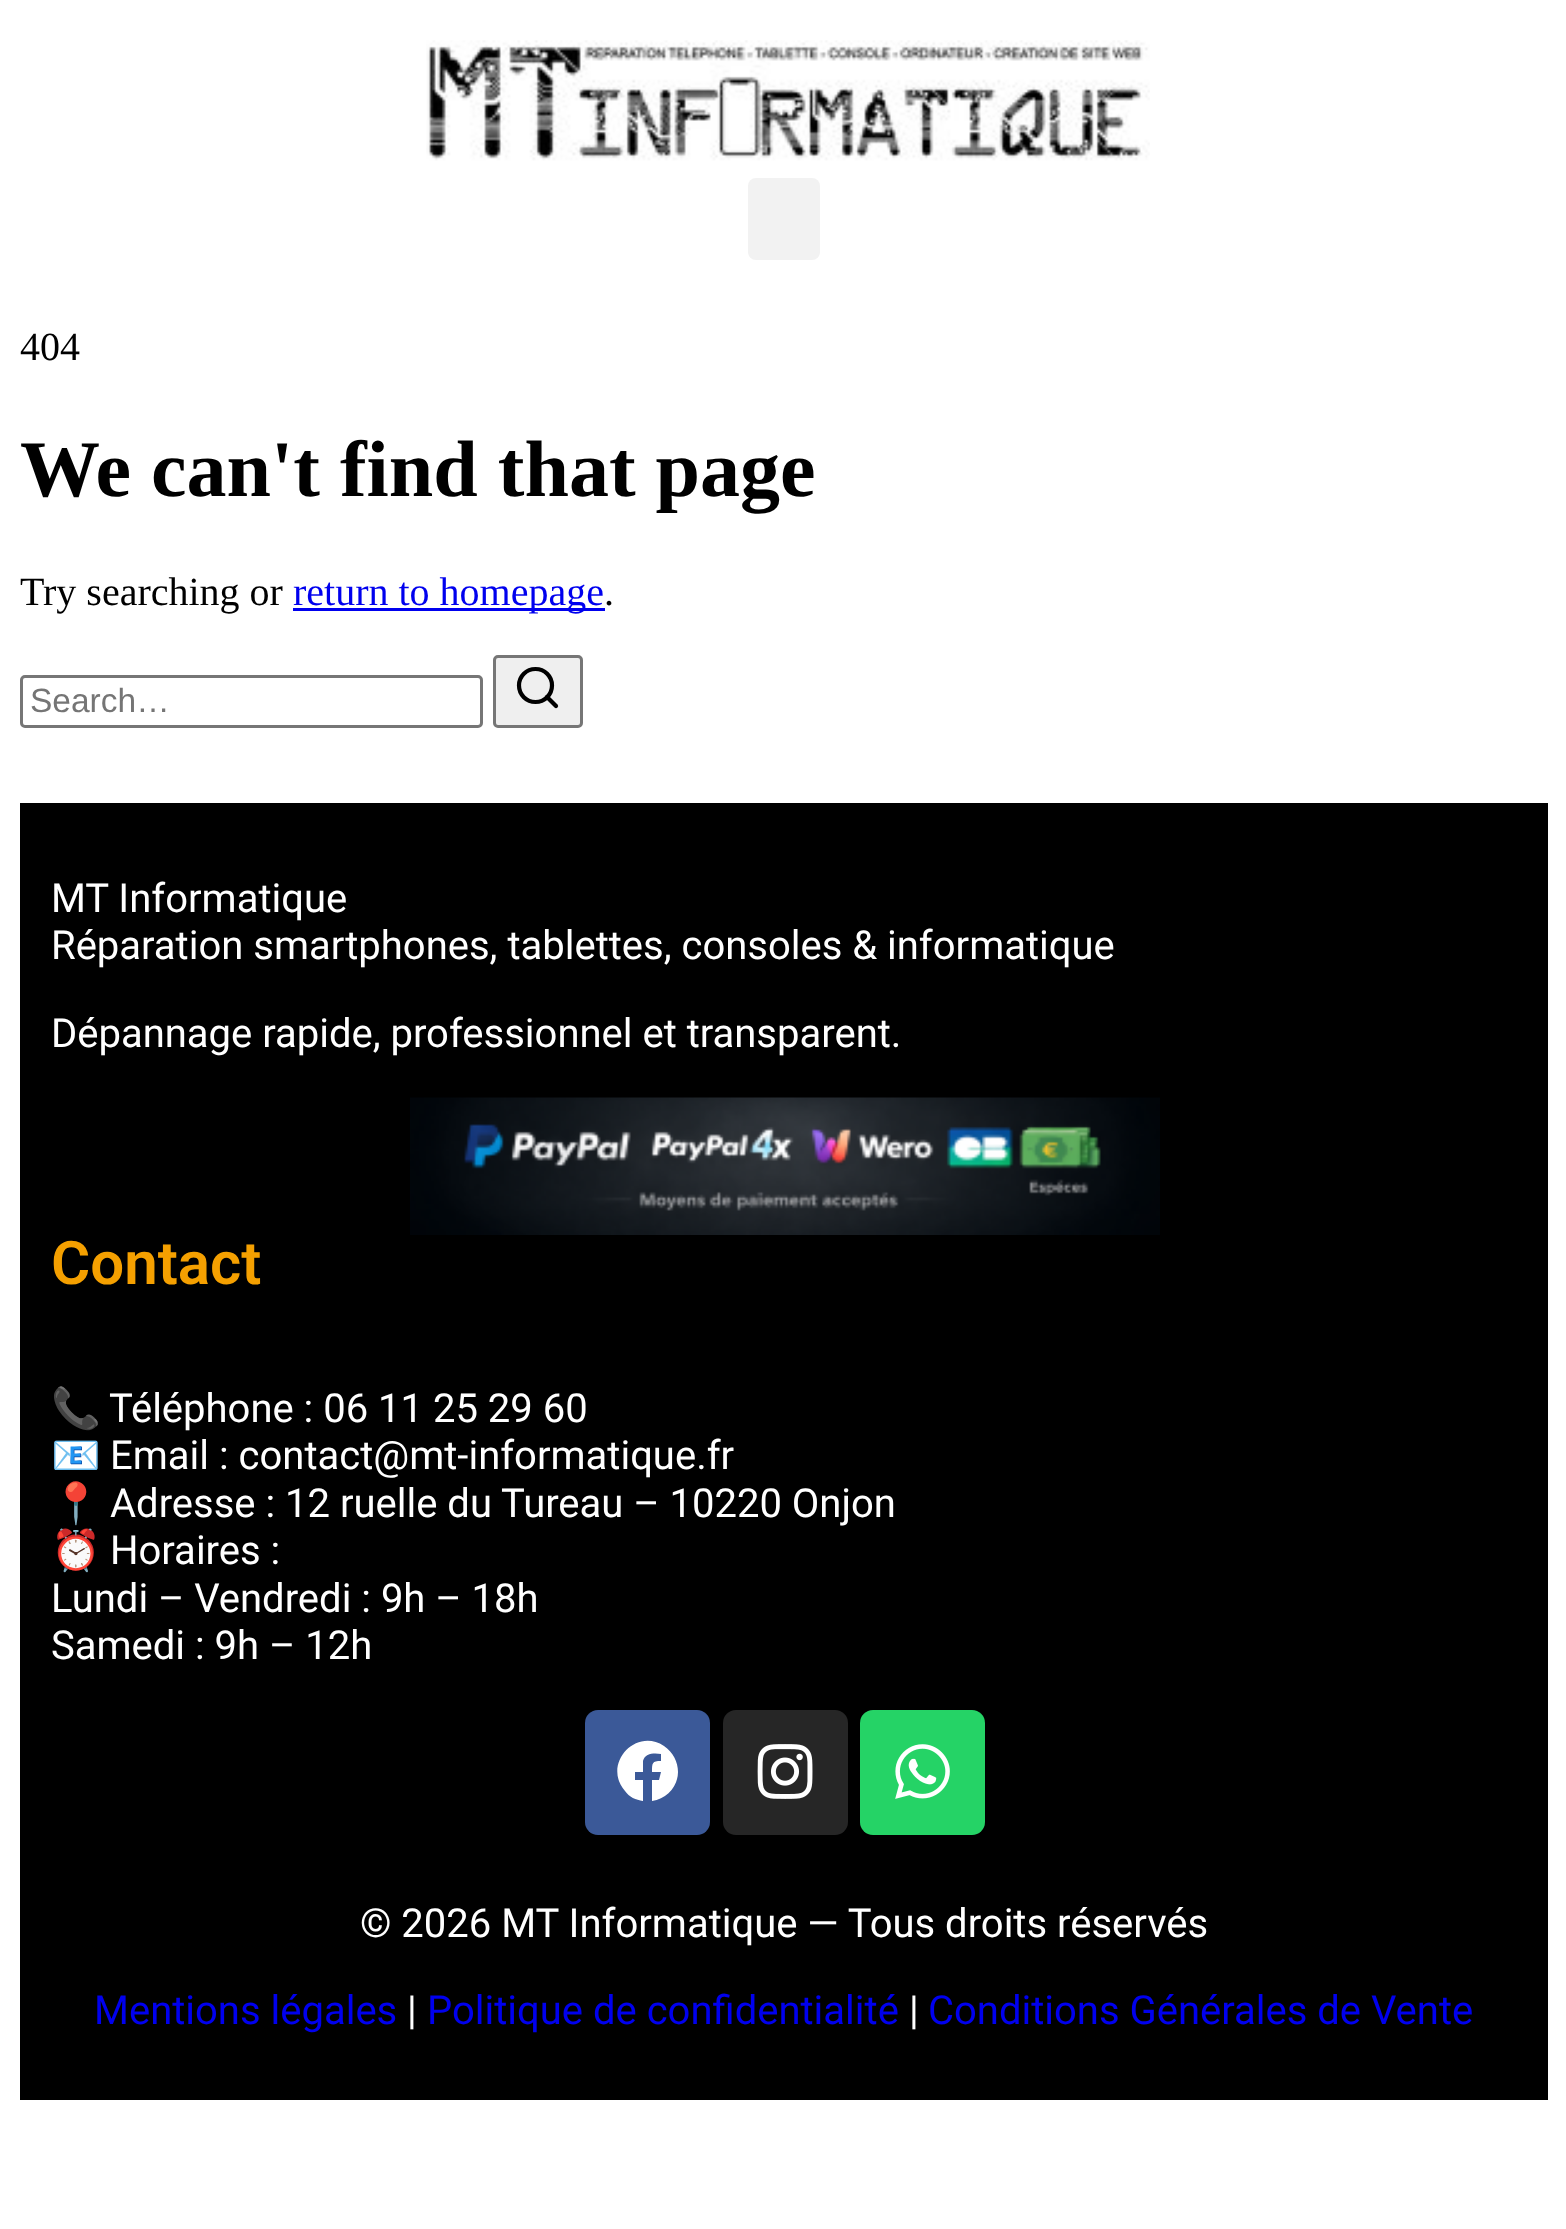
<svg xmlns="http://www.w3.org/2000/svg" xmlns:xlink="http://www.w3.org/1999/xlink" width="1566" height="2229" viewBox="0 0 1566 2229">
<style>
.cls-1{font:40px Liberation Serif;fill:#000000}
.cls-2{font:bold 80px Liberation Serif;fill:#000000}
.cls-3{font:40px Liberation Serif;fill:#0000ee}
.cls-4{font:33.5px Liberation Sans;fill:#757575}
.cls-5{font:40px Roboto;fill:#ffffff}
.cls-6{font:600 60px Roboto;fill:#f5a000}
.cls-7{font:40px Noto Color Emoji;fill:#ffffff}
.cls-8{font:40px Roboto;fill:#0000ee}
</style>
<rect width="100%" height="100%" fill="#ffffff"/>
<image xlink:href="image0.png" x="426" y="40" width="724" height="121"/>
<rect fill="#f2f2f2" x="748" y="178" width="72" height="82" rx="8"/>
<rect fill="#0000ee" x="293" y="608" width="312" height="3"/>
<rect fill="none" stroke="#767676" stroke-width="3" x="21.5" y="676.5" width="460" height="50" rx="3.5"/>
<rect fill="#efefef" stroke="#767676" stroke-width="3" x="494.5" y="656.5" width="87" height="70" rx="3.5"/>
<circle fill="none" stroke="#000000" stroke-width="4.2" cx="535.5" cy="685.5" r="16.5"/>
<path fill="none" stroke="#000000" stroke-width="4.2" stroke-linecap="round" stroke-linejoin="round" d="M556 706L547 697"/>
<rect fill="#000000" x="20" y="803" width="1528" height="1297"/>
<image xlink:href="image1.png" x="410" y="1097" width="750" height="138"/>
<rect fill="#3b5998" x="585" y="1710" width="125" height="125" rx="13"/>
<path fill="#ffffff" d="M678 1772C678 1786 667 1799 652 1801V1780H659L661 1772H652C652 1763 652 1761 661 1761V1754C654 1753 645 1753 643 1761V1772H635V1780H643V1801C636 1800 629 1797 625 1791C602 1765 635 1727 664 1746C673 1752 678 1762 678 1772Z"/>
<rect fill="#262626" x="723" y="1710" width="125" height="125" rx="13"/>
<image xlink:href="image2.png" x="757" y="1744" width="56" height="55"/>
<rect fill="#25d366" x="860" y="1710" width="125" height="125" rx="13"/>
<image xlink:href="image3.png" x="895" y="1744" width="55" height="55"/>
<text class="cls-1" x="20" y="360">404</text>
<text class="cls-2" x="20" y="496">We can't find that page</text>
<text class="cls-1" x="20" y="605">Try searching or</text>
<text class="cls-3" x="293" y="605">return to homepage</text>
<text class="cls-1" x="604" y="605">.</text>
<text class="cls-4" x="30" y="712">Search…</text>
<text class="cls-5"><tspan x="51" y="912">MT Informatique</tspan><tspan x="51" y="959">Réparation smartphones, tablettes, consoles &amp; informatique</tspan></text>
<text class="cls-5" x="51" y="1047">Dépannage rapide, professionnel et transparent.</text>
<text class="cls-6" x="51" y="1284">Contact</text>
<text class="cls-7" x="51" y="1422">📞</text>
<text class="cls-5" x="109" y="1422">Téléphone : 06 11 25 29 60</text>
<text class="cls-7" x="51" y="1469">📧</text>
<text class="cls-5" x="110" y="1469">Email : contact@mt-informatique.fr</text>
<text class="cls-7" x="51" y="1517">📍</text>
<text class="cls-5" x="110" y="1517">Adresse : 12 ruelle du Tureau – 10220 Onjon</text>
<text class="cls-7" x="51" y="1564">⏰</text>
<text class="cls-5" x="110" y="1564">Horaires :</text>
<text class="cls-5"><tspan x="51" y="1612">Lundi – Vendredi : 9h – 18h</tspan><tspan x="51" y="1659">Samedi : 9h – 12h</tspan></text>
<text class="cls-5" x="360" y="1937">© 2026 MT Informatique — Tous droits réservés</text>
<text class="cls-8" x="94" y="2024">Mentions légales</text>
<text class="cls-5" x="407" y="2024">|</text>
<text class="cls-8" x="427" y="2024">Politique de confidentialité</text>
<text class="cls-5" x="909" y="2024">|</text>
<text class="cls-8" x="928" y="2024">Conditions Générales de Vente</text>
</svg>
